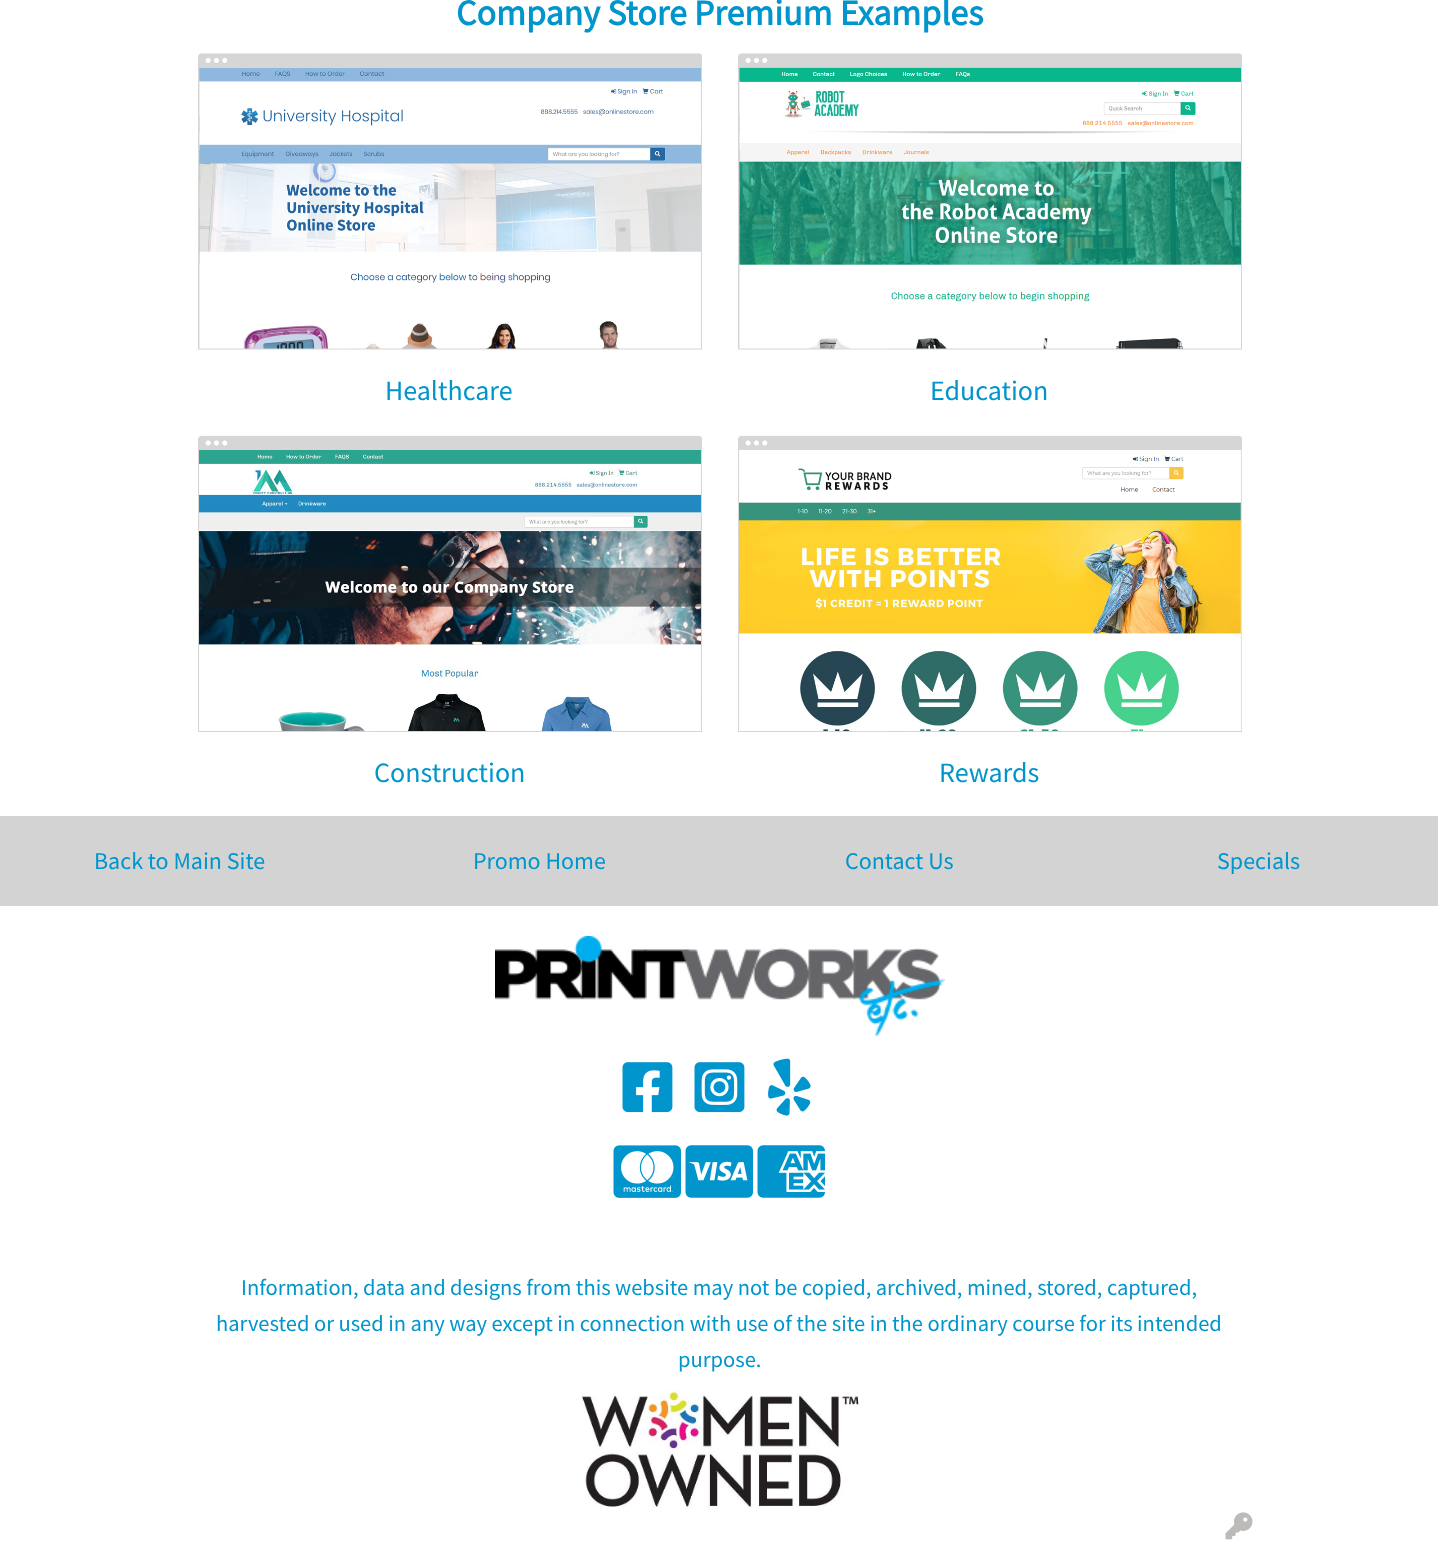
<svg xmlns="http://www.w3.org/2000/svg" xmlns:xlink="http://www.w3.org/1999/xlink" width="1438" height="1559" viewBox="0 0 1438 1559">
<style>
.cls-1{font:bold 36px Source Sans Pro;fill:#0095cc}
.cls-2{font:28px Source Sans Pro;fill:#0095cc}
.cls-3{font:24px Source Sans Pro;fill:#0095cc}
.cls-4{font:22.5px Source Sans Pro;fill:#0095cc}
</style>
<rect width="100%" height="100%" fill="#ffffff"/>
<image xlink:href="image0.png" x="198" y="53" width="504" height="297"/>
<image xlink:href="image1.png" x="738" y="53" width="504" height="297"/>
<image xlink:href="image2.png" x="198" y="435" width="504" height="297"/>
<image xlink:href="image3.png" x="738" y="435" width="504" height="297"/>
<rect fill="#d3d3d3" x="0" y="816" width="1438" height="90"/>
<image xlink:href="image4.png" x="495" y="936" width="450" height="101"/>
<image xlink:href="image5.png" x="622" y="1062" width="51" height="51"/>
<image xlink:href="image6.png" x="694" y="1062" width="51" height="51"/>
<image xlink:href="image7.png" x="768" y="1058" width="43" height="58"/>
<image xlink:href="image8.png" x="613" y="1145" width="68" height="53"/>
<image xlink:href="image9.png" x="685" y="1145" width="68" height="53"/>
<image xlink:href="image10.png" x="757" y="1145" width="68" height="53"/>
<image xlink:href="image11.png" x="581" y="1390" width="278" height="118"/>
<image xlink:href="image12.png" x="1225" y="1512" width="28" height="28"/>
<text class="cls-1" x="456" y="25">Company Store Premium Examples</text>
<text class="cls-2" x="385" y="400">Healthcare</text>
<text class="cls-2" x="930" y="400">Education</text>
<text class="cls-2" x="374" y="782">Construction</text>
<text class="cls-2" x="939" y="782">Rewards</text>
<text class="cls-3" x="94" y="869">Back to Main Site</text>
<text class="cls-3" x="473" y="869">Promo Home</text>
<text class="cls-3" x="845" y="869">Contact Us</text>
<text class="cls-3" x="1217" y="869">Specials</text>
<text class="cls-4" x="241" y="1295">Information, data and designs from this website may not be copied, archived, mined, stored, captured,</text>
<text class="cls-4" x="216" y="1331">harvested or used in any way except in connection with use of the site in the ordinary course for its intended</text>
<text class="cls-4" x="678" y="1367">purpose.</text>
</svg>
